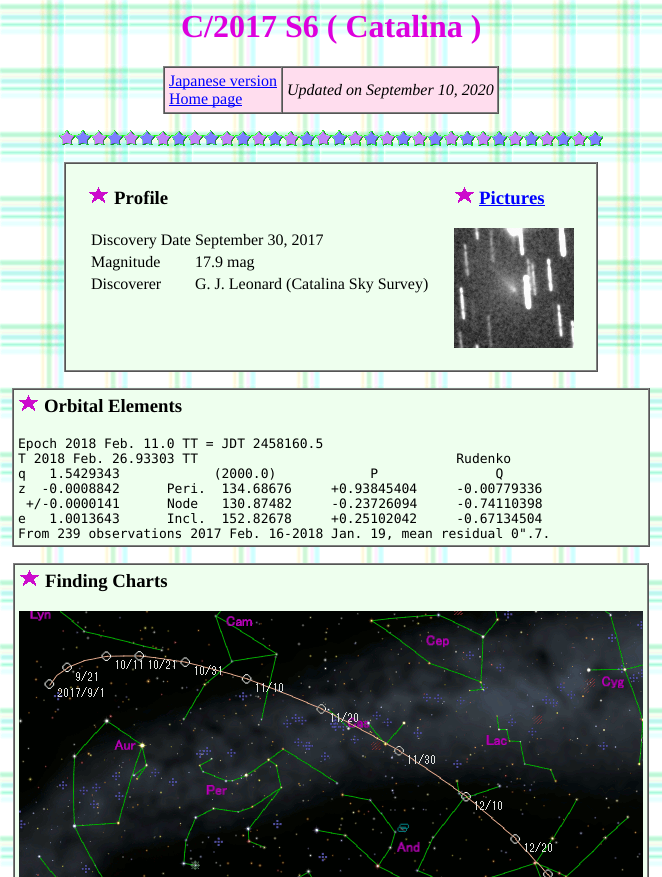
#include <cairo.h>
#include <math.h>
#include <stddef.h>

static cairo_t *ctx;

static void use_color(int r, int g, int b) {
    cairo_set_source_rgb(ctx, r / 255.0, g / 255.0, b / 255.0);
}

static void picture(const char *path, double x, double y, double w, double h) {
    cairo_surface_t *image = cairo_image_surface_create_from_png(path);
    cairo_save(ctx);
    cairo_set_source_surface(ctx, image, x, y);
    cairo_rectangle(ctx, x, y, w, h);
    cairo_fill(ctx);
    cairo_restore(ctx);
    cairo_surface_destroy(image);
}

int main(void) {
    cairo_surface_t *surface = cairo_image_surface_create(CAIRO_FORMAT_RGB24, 662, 877);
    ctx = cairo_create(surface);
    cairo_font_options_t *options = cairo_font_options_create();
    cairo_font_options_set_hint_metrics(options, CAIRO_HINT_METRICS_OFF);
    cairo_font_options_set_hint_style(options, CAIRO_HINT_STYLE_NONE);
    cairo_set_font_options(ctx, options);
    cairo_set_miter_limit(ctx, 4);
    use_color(255, 255, 255);
    cairo_paint(ctx);
    picture("img1.png", 0, 0, 662, 877);
    cairo_select_font_face(ctx, "Liberation Serif", CAIRO_FONT_SLANT_NORMAL, CAIRO_FONT_WEIGHT_BOLD);
    cairo_set_font_size(ctx, 32);
    use_color(221, 0, 221);
    cairo_move_to(ctx, 181, 37);
    cairo_show_text(ctx, "C/2017 S6 ( Catalina )");
    use_color(255, 221, 238);
    cairo_rectangle(ctx, 165, 68, 332, 44);
    cairo_fill(ctx);
    use_color(128, 128, 128);
    cairo_rectangle(ctx, 163, 66, 336, 1);
    cairo_fill(ctx);
    use_color(85, 85, 85);
    cairo_rectangle(ctx, 498, 66, 1, 48);
    cairo_fill(ctx);
    cairo_rectangle(ctx, 163, 113, 336, 1);
    cairo_fill(ctx);
    use_color(128, 128, 128);
    cairo_rectangle(ctx, 163, 66, 1, 48);
    cairo_fill(ctx);
    use_color(85, 85, 85);
    cairo_rectangle(ctx, 164, 67, 334, 1);
    cairo_fill(ctx);
    use_color(128, 128, 128);
    cairo_rectangle(ctx, 281, 67, 1, 46);
    cairo_fill(ctx);
    cairo_rectangle(ctx, 164, 112, 118, 1);
    cairo_fill(ctx);
    use_color(85, 85, 85);
    cairo_rectangle(ctx, 164, 67, 1, 46);
    cairo_fill(ctx);
    use_color(0, 0, 255);
    cairo_rectangle(ctx, 169, 87, 108, 1);
    cairo_fill(ctx);
    cairo_select_font_face(ctx, "Liberation Serif", CAIRO_FONT_SLANT_NORMAL, CAIRO_FONT_WEIGHT_NORMAL);
    cairo_set_font_size(ctx, 16);
    cairo_move_to(ctx, 169, 86);
    cairo_show_text(ctx, "Japanese version");
    cairo_rectangle(ctx, 169, 105, 73, 1);
    cairo_fill(ctx);
    cairo_move_to(ctx, 169, 104);
    cairo_show_text(ctx, "Home page");
    use_color(128, 128, 128);
    cairo_rectangle(ctx, 497, 67, 1, 46);
    cairo_fill(ctx);
    cairo_rectangle(ctx, 282, 112, 216, 1);
    cairo_fill(ctx);
    use_color(85, 85, 85);
    cairo_rectangle(ctx, 282, 67, 1, 46);
    cairo_fill(ctx);
    cairo_select_font_face(ctx, "Liberation Serif", CAIRO_FONT_SLANT_ITALIC, CAIRO_FONT_WEIGHT_NORMAL);
    use_color(0, 0, 0);
    cairo_move_to(ctx, 287, 95);
    cairo_show_text(ctx, "Updated on September 10, 2020");
    picture("img2.png", 59, 130, 544, 16);
    use_color(238, 255, 238);
    cairo_rectangle(ctx, 66, 164, 530, 206);
    cairo_fill(ctx);
    use_color(128, 128, 128);
    cairo_rectangle(ctx, 64, 162, 534, 1);
    cairo_fill(ctx);
    use_color(85, 85, 85);
    cairo_rectangle(ctx, 597, 162, 1, 210);
    cairo_fill(ctx);
    cairo_rectangle(ctx, 64, 371, 534, 1);
    cairo_fill(ctx);
    use_color(128, 128, 128);
    cairo_rectangle(ctx, 64, 162, 1, 210);
    cairo_fill(ctx);
    use_color(85, 85, 85);
    cairo_rectangle(ctx, 65, 163, 532, 1);
    cairo_fill(ctx);
    use_color(128, 128, 128);
    cairo_rectangle(ctx, 596, 163, 1, 208);
    cairo_fill(ctx);
    cairo_rectangle(ctx, 65, 370, 532, 1);
    cairo_fill(ctx);
    use_color(85, 85, 85);
    cairo_rectangle(ctx, 65, 163, 1, 208);
    cairo_fill(ctx);
    picture("img3.png", 89, 187, 19, 16);
    cairo_select_font_face(ctx, "Liberation Serif", CAIRO_FONT_SLANT_NORMAL, CAIRO_FONT_WEIGHT_BOLD);
    cairo_set_font_size(ctx, 18.75);
    use_color(0, 0, 0);
    cairo_move_to(ctx, 114, 204);
    cairo_show_text(ctx, "Profile");
    cairo_select_font_face(ctx, "Liberation Serif", CAIRO_FONT_SLANT_NORMAL, CAIRO_FONT_WEIGHT_NORMAL);
    cairo_set_font_size(ctx, 16);
    cairo_move_to(ctx, 91, 245);
    cairo_show_text(ctx, "Discovery Date September 30, 2017");
    cairo_move_to(ctx, 91, 267);
    cairo_show_text(ctx, "Magnitude");
    cairo_move_to(ctx, 195, 267);
    cairo_show_text(ctx, "17.9 mag");
    cairo_move_to(ctx, 91, 289);
    cairo_show_text(ctx, "Discoverer");
    cairo_move_to(ctx, 195, 289);
    cairo_show_text(ctx, "G. J. Leonard (Catalina Sky Survey)");
    picture("img3.png", 455, 187, 19, 16);
    cairo_select_font_face(ctx, "Liberation Serif", CAIRO_FONT_SLANT_NORMAL, CAIRO_FONT_WEIGHT_BOLD);
    cairo_set_font_size(ctx, 18.75);
    use_color(0, 0, 255);
    cairo_move_to(ctx, 479, 204);
    cairo_show_text(ctx, "Pictures");
    cairo_rectangle(ctx, 479, 205, 66, 1);
    cairo_fill(ctx);
    picture("img4.png", 454, 228, 120, 120);
    use_color(238, 255, 238);
    cairo_rectangle(ctx, 14, 390, 634, 155);
    cairo_fill(ctx);
    use_color(128, 128, 128);
    cairo_rectangle(ctx, 12, 388, 638, 1);
    cairo_fill(ctx);
    use_color(85, 85, 85);
    cairo_rectangle(ctx, 649, 388, 1, 159);
    cairo_fill(ctx);
    cairo_rectangle(ctx, 12, 546, 638, 1);
    cairo_fill(ctx);
    use_color(128, 128, 128);
    cairo_rectangle(ctx, 12, 388, 1, 159);
    cairo_fill(ctx);
    use_color(85, 85, 85);
    cairo_rectangle(ctx, 13, 389, 636, 1);
    cairo_fill(ctx);
    use_color(128, 128, 128);
    cairo_rectangle(ctx, 648, 389, 1, 157);
    cairo_fill(ctx);
    cairo_rectangle(ctx, 13, 545, 636, 1);
    cairo_fill(ctx);
    use_color(85, 85, 85);
    cairo_rectangle(ctx, 13, 389, 1, 157);
    cairo_fill(ctx);
    picture("img3.png", 19, 395, 19, 16);
    use_color(0, 0, 0);
    cairo_move_to(ctx, 44, 412);
    cairo_show_text(ctx, "Orbital Elements");
    cairo_select_font_face(ctx, "DejaVu Sans Mono", CAIRO_FONT_SLANT_NORMAL, CAIRO_FONT_WEIGHT_NORMAL);
    cairo_set_font_size(ctx, 13);
    cairo_move_to(ctx, 18, 448);
    cairo_show_text(ctx, "Epoch 2018 Feb. 11.0 TT = JDT 2458160.5");
    cairo_move_to(ctx, 18, 463);
    cairo_show_text(ctx, "T 2018 Feb. 26.93303 TT                                 Rudenko");
    cairo_move_to(ctx, 18, 478);
    cairo_show_text(ctx, "q   1.5429343            (2000.0)            P               Q");
    cairo_move_to(ctx, 18, 493);
    cairo_show_text(ctx, "z  -0.0008842      Peri.  134.68676     +0.93845404     -0.00779336");
    cairo_move_to(ctx, 26, 508);
    cairo_show_text(ctx, "+/-0.0000141      Node   130.87482     -0.23726094     -0.74110398");
    cairo_move_to(ctx, 18, 523);
    cairo_show_text(ctx, "e   1.0013643      Incl.  152.82678     +0.25102042     -0.67134504");
    cairo_move_to(ctx, 18, 538);
    cairo_show_text(ctx, "From 239 observations 2017 Feb. 16-2018 Jan. 19, mean residual 0\".7.");
    use_color(238, 255, 238);
    cairo_rectangle(ctx, 15, 565, 632, 312);
    cairo_fill(ctx);
    use_color(128, 128, 128);
    cairo_rectangle(ctx, 13, 563, 636, 1);
    cairo_fill(ctx);
    use_color(85, 85, 85);
    cairo_rectangle(ctx, 648, 563, 1, 314);
    cairo_fill(ctx);
    use_color(128, 128, 128);
    cairo_rectangle(ctx, 13, 563, 1, 314);
    cairo_fill(ctx);
    use_color(85, 85, 85);
    cairo_rectangle(ctx, 14, 564, 634, 1);
    cairo_fill(ctx);
    use_color(128, 128, 128);
    cairo_rectangle(ctx, 647, 564, 1, 313);
    cairo_fill(ctx);
    use_color(85, 85, 85);
    cairo_rectangle(ctx, 14, 564, 1, 313);
    cairo_fill(ctx);
    picture("img3.png", 20, 570, 19, 16);
    cairo_select_font_face(ctx, "Liberation Serif", CAIRO_FONT_SLANT_NORMAL, CAIRO_FONT_WEIGHT_BOLD);
    cairo_set_font_size(ctx, 18.75);
    use_color(0, 0, 0);
    cairo_move_to(ctx, 45, 587);
    cairo_show_text(ctx, "Finding Charts");
    picture("img5.png", 19, 611, 624, 266);
    cairo_surface_write_to_png(surface, "result.png");
    cairo_font_options_destroy(options);
    cairo_destroy(ctx);
    cairo_surface_destroy(surface);
    return 0;
}
